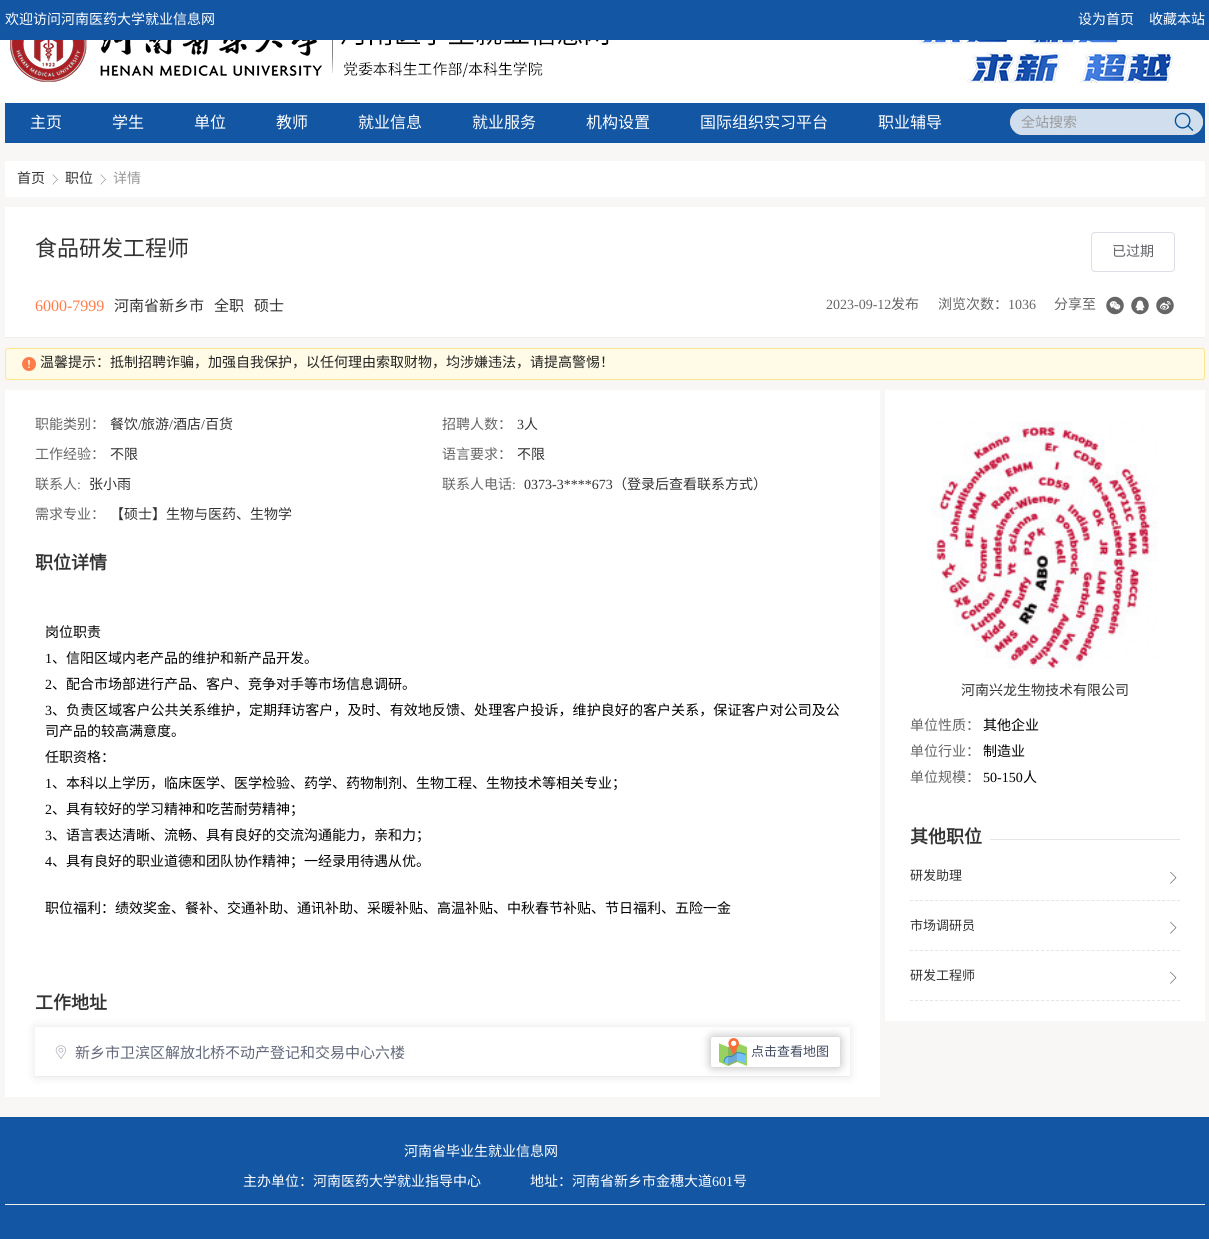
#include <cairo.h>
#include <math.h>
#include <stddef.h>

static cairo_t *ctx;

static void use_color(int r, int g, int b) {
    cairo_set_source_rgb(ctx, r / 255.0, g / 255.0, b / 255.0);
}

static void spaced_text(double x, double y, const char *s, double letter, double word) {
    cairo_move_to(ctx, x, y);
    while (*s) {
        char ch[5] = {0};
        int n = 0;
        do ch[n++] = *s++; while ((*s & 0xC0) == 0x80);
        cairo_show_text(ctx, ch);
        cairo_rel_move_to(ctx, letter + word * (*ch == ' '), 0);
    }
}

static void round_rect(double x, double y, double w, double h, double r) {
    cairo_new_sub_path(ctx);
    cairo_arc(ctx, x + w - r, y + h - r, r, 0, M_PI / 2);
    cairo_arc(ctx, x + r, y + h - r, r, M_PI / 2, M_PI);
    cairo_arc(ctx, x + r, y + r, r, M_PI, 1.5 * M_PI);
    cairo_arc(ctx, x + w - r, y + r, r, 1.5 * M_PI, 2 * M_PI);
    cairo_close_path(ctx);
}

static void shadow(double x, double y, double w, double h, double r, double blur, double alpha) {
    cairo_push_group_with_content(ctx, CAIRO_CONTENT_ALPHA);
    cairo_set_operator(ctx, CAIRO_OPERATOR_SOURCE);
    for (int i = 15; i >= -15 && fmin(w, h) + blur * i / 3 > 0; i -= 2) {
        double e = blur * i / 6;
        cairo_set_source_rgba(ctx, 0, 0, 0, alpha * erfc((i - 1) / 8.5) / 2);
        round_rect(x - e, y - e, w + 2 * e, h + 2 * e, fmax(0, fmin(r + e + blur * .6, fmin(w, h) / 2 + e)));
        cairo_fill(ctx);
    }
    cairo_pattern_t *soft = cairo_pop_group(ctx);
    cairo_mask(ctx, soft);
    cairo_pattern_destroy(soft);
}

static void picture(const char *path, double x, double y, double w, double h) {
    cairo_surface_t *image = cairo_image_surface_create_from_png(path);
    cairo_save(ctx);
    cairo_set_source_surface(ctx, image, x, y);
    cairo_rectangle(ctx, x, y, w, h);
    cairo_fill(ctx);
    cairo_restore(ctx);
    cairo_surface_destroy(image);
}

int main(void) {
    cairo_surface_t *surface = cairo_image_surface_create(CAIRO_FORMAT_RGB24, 1209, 1239);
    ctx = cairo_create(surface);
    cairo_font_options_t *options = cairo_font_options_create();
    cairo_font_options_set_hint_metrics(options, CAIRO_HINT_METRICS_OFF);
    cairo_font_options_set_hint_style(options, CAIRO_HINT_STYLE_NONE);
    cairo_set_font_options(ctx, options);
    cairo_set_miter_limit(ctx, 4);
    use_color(248, 247, 245);
    cairo_paint(ctx);
    use_color(19, 86, 164);
    cairo_rectangle(ctx, 0, 0, 1209, 40);
    cairo_fill(ctx);
    cairo_select_font_face(ctx, "Noto Sans CJK SC", CAIRO_FONT_SLANT_NORMAL, CAIRO_FONT_WEIGHT_NORMAL);
    cairo_set_font_size(ctx, 14);
    use_color(255, 255, 255);
    cairo_move_to(ctx, 5, 24);
    cairo_show_text(ctx, "欢迎访问河南医药大学就业信息网");
    cairo_move_to(ctx, 1078, 24);
    cairo_show_text(ctx, "设为首页");
    cairo_move_to(ctx, 1149, 24);
    cairo_show_text(ctx, "收藏本站");
    cairo_rectangle(ctx, 0, 40, 1209, 63);
    cairo_fill(ctx);
    picture("img1.png", 10, 40, 1163, 43);
    use_color(19, 86, 164);
    cairo_rectangle(ctx, 5, 103, 1200, 40);
    cairo_fill(ctx);
    cairo_set_font_size(ctx, 16);
    use_color(255, 255, 255);
    cairo_move_to(ctx, 30, 128);
    cairo_show_text(ctx, "主页");
    cairo_move_to(ctx, 112, 128);
    cairo_show_text(ctx, "学生");
    cairo_move_to(ctx, 194, 128);
    cairo_show_text(ctx, "单位");
    cairo_move_to(ctx, 276, 128);
    cairo_show_text(ctx, "教师");
    cairo_move_to(ctx, 358, 128);
    cairo_show_text(ctx, "就业信息");
    cairo_move_to(ctx, 472, 128);
    cairo_show_text(ctx, "就业服务");
    cairo_move_to(ctx, 586, 128);
    cairo_show_text(ctx, "机构设置");
    cairo_move_to(ctx, 700, 128);
    cairo_show_text(ctx, "国际组织实习平台");
    cairo_move_to(ctx, 878, 128);
    cairo_show_text(ctx, "职业辅导");
    use_color(208, 222, 237);
    cairo_new_path(ctx);
    cairo_move_to(ctx, 1023, 109);
    cairo_line_to(ctx, 1169, 109);
    cairo_line_to(ctx, 1169, 135);
    cairo_line_to(ctx, 1023, 135);
    cairo_curve_to(ctx, 1016, 135, 1010, 129, 1010, 122);
    cairo_curve_to(ctx, 1010, 115, 1016, 109, 1023, 109);
    cairo_close_path(ctx);
    cairo_fill(ctx);
    use_color(221, 221, 221);
    cairo_new_path(ctx);
    cairo_move_to(ctx, 1023, 109);
    cairo_curve_to(ctx, 1020, 109, 1016, 110, 1014, 113);
    cairo_curve_to(ctx, 1016, 111, 1020, 110, 1023, 110);
    cairo_line_to(ctx, 1168, 110);
    cairo_line_to(ctx, 1169, 109);
    cairo_close_path(ctx);
    cairo_fill(ctx);
    cairo_new_path(ctx);
    cairo_move_to(ctx, 1169, 135);
    cairo_line_to(ctx, 1168, 134);
    cairo_line_to(ctx, 1023, 134);
    cairo_curve_to(ctx, 1020, 134, 1016, 133, 1014, 131);
    cairo_curve_to(ctx, 1016, 134, 1020, 135, 1023, 135);
    cairo_close_path(ctx);
    cairo_fill(ctx);
    cairo_new_path(ctx);
    cairo_move_to(ctx, 1014, 131);
    cairo_curve_to(ctx, 1009, 126, 1009, 118, 1014, 113);
    cairo_line_to(ctx, 1014.5, 113.5);
    cairo_curve_to(ctx, 1010, 118, 1010, 126, 1014.5, 130.5);
    cairo_close_path(ctx);
    cairo_fill(ctx);
    use_color(208, 222, 237);
    cairo_new_path(ctx);
    cairo_move_to(ctx, 1023, 110);
    cairo_line_to(ctx, 1168, 110);
    cairo_line_to(ctx, 1168, 134);
    cairo_line_to(ctx, 1023, 134);
    cairo_curve_to(ctx, 1016.5, 134, 1011, 128.5, 1011, 122);
    cairo_curve_to(ctx, 1011, 115.5, 1016.5, 110, 1023, 110);
    cairo_close_path(ctx);
    cairo_fill(ctx);
    cairo_set_font_size(ctx, 14);
    use_color(153, 153, 153);
    cairo_move_to(ctx, 1021, 127);
    cairo_show_text(ctx, "全站搜索");
    use_color(208, 222, 237);
    cairo_new_path(ctx);
    cairo_move_to(ctx, 1167, 109);
    cairo_line_to(ctx, 1190, 109);
    cairo_curve_to(ctx, 1197, 109, 1203, 115, 1203, 122);
    cairo_curve_to(ctx, 1203, 129, 1197, 135, 1190, 135);
    cairo_line_to(ctx, 1167, 135);
    cairo_close_path(ctx);
    cairo_fill(ctx);
    use_color(221, 221, 221);
    cairo_set_fill_rule(ctx, CAIRO_FILL_RULE_EVEN_ODD);
    cairo_new_path(ctx);
    cairo_move_to(ctx, 1167, 109);
    cairo_line_to(ctx, 1190, 109);
    cairo_curve_to(ctx, 1197, 109, 1203, 115, 1203, 122);
    cairo_curve_to(ctx, 1203, 129, 1197, 135, 1190, 135);
    cairo_line_to(ctx, 1167, 135);
    cairo_close_path(ctx);
    cairo_move_to(ctx, 1167, 110);
    cairo_line_to(ctx, 1190, 110);
    cairo_curve_to(ctx, 1196.5, 110, 1202, 115.5, 1202, 122);
    cairo_curve_to(ctx, 1202, 128.5, 1196.5, 134, 1190, 134);
    cairo_line_to(ctx, 1167, 134);
    cairo_close_path(ctx);
    cairo_fill(ctx);
    picture("img2.png", 1174, 112, 20, 19);
    use_color(255, 255, 255);
    round_rect(5, 161, 1200, 36, 2);
    cairo_fill(ctx);
    use_color(51, 51, 51);
    cairo_move_to(ctx, 17, 183);
    cairo_show_text(ctx, "首页");
    picture("img3.png", 52, 174, 6, 11);
    cairo_move_to(ctx, 65, 183);
    cairo_show_text(ctx, "职位");
    picture("img3.png", 100, 174, 6, 11);
    use_color(153, 153, 153);
    cairo_move_to(ctx, 113, 183);
    cairo_show_text(ctx, "详情");
    use_color(255, 255, 255);
    cairo_rectangle(ctx, 5, 207, 1200, 130);
    cairo_fill(ctx);
    use_color(238, 238, 238);
    cairo_rectangle(ctx, 5, 337, 1200, 1);
    cairo_fill(ctx);
    cairo_set_font_size(ctx, 22);
    use_color(51, 51, 51);
    cairo_move_to(ctx, 35, 256);
    cairo_show_text(ctx, "食品研发工程师");
    cairo_select_font_face(ctx, "Liberation Serif", CAIRO_FONT_SLANT_NORMAL, CAIRO_FONT_WEIGHT_NORMAL);
    cairo_set_font_size(ctx, 16);
    use_color(254, 124, 73);
    cairo_move_to(ctx, 35, 311);
    cairo_show_text(ctx, "6000-7999");
    cairo_select_font_face(ctx, "Noto Sans CJK SC", CAIRO_FONT_SLANT_NORMAL, CAIRO_FONT_WEIGHT_NORMAL);
    cairo_set_font_size(ctx, 15);
    use_color(51, 51, 51);
    cairo_move_to(ctx, 114, 311);
    cairo_show_text(ctx, "河南省新乡市");
    cairo_move_to(ctx, 214, 311);
    cairo_show_text(ctx, "全职");
    cairo_move_to(ctx, 254, 311);
    cairo_show_text(ctx, "硕士");
    round_rect(1091.5, 232.5, 83, 39, 3.5);
    use_color(220, 223, 230);
    cairo_set_line_width(ctx, 1);
    cairo_stroke(ctx);
    cairo_set_font_size(ctx, 14);
    use_color(96, 98, 102);
    cairo_move_to(ctx, 1112, 256);
    cairo_show_text(ctx, "已过期");
    cairo_select_font_face(ctx, "Liberation Serif", CAIRO_FONT_SLANT_NORMAL, CAIRO_FONT_WEIGHT_NORMAL);
    use_color(102, 102, 102);
    cairo_move_to(ctx, 826, 309);
    cairo_show_text(ctx, "2023-09-12");
    cairo_select_font_face(ctx, "Noto Sans CJK SC", CAIRO_FONT_SLANT_NORMAL, CAIRO_FONT_WEIGHT_NORMAL);
    cairo_move_to(ctx, 891, 309);
    cairo_show_text(ctx, "发布");
    cairo_move_to(ctx, 938, 309);
    cairo_show_text(ctx, "浏览次数：");
    cairo_select_font_face(ctx, "Liberation Serif", CAIRO_FONT_SLANT_NORMAL, CAIRO_FONT_WEIGHT_NORMAL);
    cairo_move_to(ctx, 1008, 309);
    cairo_show_text(ctx, "1036");
    cairo_select_font_face(ctx, "Noto Sans CJK SC", CAIRO_FONT_SLANT_NORMAL, CAIRO_FONT_WEIGHT_NORMAL);
    cairo_move_to(ctx, 1054, 309);
    cairo_show_text(ctx, "分享至");
    picture("img4.png", 1106, 296, 18, 19);
    picture("img5.png", 1131, 296, 18, 19);
    picture("img6.png", 1156, 296, 18, 19);
    use_color(255, 251, 230);
    round_rect(5.5, 348.5, 1199, 31, 2.5);
    cairo_fill_preserve(ctx);
    use_color(255, 229, 143);
    cairo_stroke(ctx);
    picture("img7.png", 22, 357, 14, 14);
    use_color(34, 34, 34);
    cairo_move_to(ctx, 40, 367);
    cairo_show_text(ctx, "温馨提示：抵制招聘诈骗，加强自我保护，以任何理由索取财物，均涉嫌违法，请提高警惕！");
    use_color(255, 255, 255);
    cairo_rectangle(ctx, 5, 390, 875, 707);
    cairo_fill(ctx);
    use_color(102, 102, 102);
    cairo_move_to(ctx, 35, 429);
    cairo_show_text(ctx, "职能类别：");
    use_color(51, 51, 51);
    cairo_move_to(ctx, 110, 429);
    cairo_show_text(ctx, "餐饮");
    cairo_select_font_face(ctx, "Liberation Serif", CAIRO_FONT_SLANT_NORMAL, CAIRO_FONT_WEIGHT_NORMAL);
    cairo_move_to(ctx, 138, 429);
    cairo_show_text(ctx, "/");
    cairo_select_font_face(ctx, "Noto Sans CJK SC", CAIRO_FONT_SLANT_NORMAL, CAIRO_FONT_WEIGHT_NORMAL);
    cairo_move_to(ctx, 141, 429);
    cairo_show_text(ctx, "旅游");
    cairo_select_font_face(ctx, "Liberation Serif", CAIRO_FONT_SLANT_NORMAL, CAIRO_FONT_WEIGHT_NORMAL);
    cairo_move_to(ctx, 169, 429);
    cairo_show_text(ctx, "/");
    cairo_select_font_face(ctx, "Noto Sans CJK SC", CAIRO_FONT_SLANT_NORMAL, CAIRO_FONT_WEIGHT_NORMAL);
    cairo_move_to(ctx, 173, 429);
    cairo_show_text(ctx, "酒店");
    cairo_select_font_face(ctx, "Liberation Serif", CAIRO_FONT_SLANT_NORMAL, CAIRO_FONT_WEIGHT_NORMAL);
    cairo_move_to(ctx, 201, 429);
    cairo_show_text(ctx, "/");
    cairo_select_font_face(ctx, "Noto Sans CJK SC", CAIRO_FONT_SLANT_NORMAL, CAIRO_FONT_WEIGHT_NORMAL);
    cairo_move_to(ctx, 205, 429);
    cairo_show_text(ctx, "百货");
    use_color(102, 102, 102);
    cairo_move_to(ctx, 442, 429);
    cairo_show_text(ctx, "招聘人数：");
    cairo_select_font_face(ctx, "Liberation Serif", CAIRO_FONT_SLANT_NORMAL, CAIRO_FONT_WEIGHT_NORMAL);
    use_color(51, 51, 51);
    cairo_move_to(ctx, 517, 429);
    cairo_show_text(ctx, "3");
    cairo_select_font_face(ctx, "Noto Sans CJK SC", CAIRO_FONT_SLANT_NORMAL, CAIRO_FONT_WEIGHT_NORMAL);
    cairo_move_to(ctx, 524, 429);
    cairo_show_text(ctx, "人");
    use_color(102, 102, 102);
    cairo_move_to(ctx, 35, 459);
    cairo_show_text(ctx, "工作经验：");
    use_color(51, 51, 51);
    cairo_move_to(ctx, 110, 459);
    cairo_show_text(ctx, "不限");
    use_color(102, 102, 102);
    cairo_move_to(ctx, 442, 459);
    cairo_show_text(ctx, "语言要求：");
    use_color(51, 51, 51);
    cairo_move_to(ctx, 517, 459);
    cairo_show_text(ctx, "不限");
    use_color(102, 102, 102);
    cairo_move_to(ctx, 35, 489);
    cairo_show_text(ctx, "联系人");
    cairo_select_font_face(ctx, "Liberation Serif", CAIRO_FONT_SLANT_NORMAL, CAIRO_FONT_WEIGHT_NORMAL);
    cairo_move_to(ctx, 77, 489);
    cairo_show_text(ctx, ":");
    cairo_select_font_face(ctx, "Noto Sans CJK SC", CAIRO_FONT_SLANT_NORMAL, CAIRO_FONT_WEIGHT_NORMAL);
    use_color(51, 51, 51);
    cairo_move_to(ctx, 89, 489);
    cairo_show_text(ctx, "张小雨");
    use_color(102, 102, 102);
    cairo_move_to(ctx, 442, 489);
    cairo_show_text(ctx, "联系人电话");
    cairo_select_font_face(ctx, "Liberation Serif", CAIRO_FONT_SLANT_NORMAL, CAIRO_FONT_WEIGHT_NORMAL);
    cairo_move_to(ctx, 512, 489);
    cairo_show_text(ctx, ":");
    use_color(51, 51, 51);
    cairo_move_to(ctx, 524, 489);
    cairo_show_text(ctx, "0373-3****673");
    cairo_select_font_face(ctx, "Noto Sans CJK SC", CAIRO_FONT_SLANT_NORMAL, CAIRO_FONT_WEIGHT_NORMAL);
    cairo_move_to(ctx, 613, 489);
    cairo_show_text(ctx, "（登录后查看联系方式）");
    use_color(102, 102, 102);
    cairo_move_to(ctx, 35, 519);
    cairo_show_text(ctx, "需求专业：");
    use_color(51, 51, 51);
    cairo_move_to(ctx, 110, 519);
    cairo_show_text(ctx, "【硕士】生物与医药、生物学");
    cairo_select_font_face(ctx, "Noto Sans CJK SC", CAIRO_FONT_SLANT_NORMAL, CAIRO_FONT_WEIGHT_BOLD);
    cairo_set_font_size(ctx, 18);
    cairo_move_to(ctx, 35, 569);
    cairo_show_text(ctx, "职位详情");
    cairo_select_font_face(ctx, "Noto Sans CJK SC", CAIRO_FONT_SLANT_NORMAL, CAIRO_FONT_WEIGHT_NORMAL);
    cairo_set_font_size(ctx, 14);
    use_color(0, 0, 0);
    cairo_move_to(ctx, 45, 637);
    cairo_show_text(ctx, "岗位职责");
    cairo_select_font_face(ctx, "Liberation Serif", CAIRO_FONT_SLANT_NORMAL, CAIRO_FONT_WEIGHT_NORMAL);
    cairo_move_to(ctx, 45, 663);
    cairo_show_text(ctx, "1");
    cairo_select_font_face(ctx, "Noto Sans CJK SC", CAIRO_FONT_SLANT_NORMAL, CAIRO_FONT_WEIGHT_NORMAL);
    cairo_move_to(ctx, 52, 663);
    cairo_show_text(ctx, "、信阳区域内老产品的维护和新产品开发。");
    cairo_select_font_face(ctx, "Liberation Serif", CAIRO_FONT_SLANT_NORMAL, CAIRO_FONT_WEIGHT_NORMAL);
    cairo_move_to(ctx, 45, 689);
    cairo_show_text(ctx, "2");
    cairo_select_font_face(ctx, "Noto Sans CJK SC", CAIRO_FONT_SLANT_NORMAL, CAIRO_FONT_WEIGHT_NORMAL);
    cairo_move_to(ctx, 52, 689);
    cairo_show_text(ctx, "、配合市场部进行产品、客户、竞争对手等市场信息调研。");
    cairo_select_font_face(ctx, "Liberation Serif", CAIRO_FONT_SLANT_NORMAL, CAIRO_FONT_WEIGHT_NORMAL);
    spaced_text(45, 715, "3", 0.07, 0);
    cairo_select_font_face(ctx, "Noto Sans CJK SC", CAIRO_FONT_SLANT_NORMAL, CAIRO_FONT_WEIGHT_NORMAL);
    spaced_text(52, 715, "、负责区域客户公共关系维护，定期拜访客户，及时、有效地反馈、处理客户投诉，维护良好的客户关系，保证客户对公司及公", 0.07, 0);
    cairo_move_to(ctx, 45, 736);
    cairo_show_text(ctx, "司产品的较高满意度。");
    cairo_move_to(ctx, 45, 762);
    cairo_show_text(ctx, "任职资格：");
    cairo_select_font_face(ctx, "Liberation Serif", CAIRO_FONT_SLANT_NORMAL, CAIRO_FONT_WEIGHT_NORMAL);
    cairo_move_to(ctx, 45, 788);
    cairo_show_text(ctx, "1");
    cairo_select_font_face(ctx, "Noto Sans CJK SC", CAIRO_FONT_SLANT_NORMAL, CAIRO_FONT_WEIGHT_NORMAL);
    cairo_move_to(ctx, 52, 788);
    cairo_show_text(ctx, "、本科以上学历，临床医学、医学检验、药学、药物制剂、生物工程、生物技术等相关专业；");
    cairo_select_font_face(ctx, "Liberation Serif", CAIRO_FONT_SLANT_NORMAL, CAIRO_FONT_WEIGHT_NORMAL);
    cairo_move_to(ctx, 45, 814);
    cairo_show_text(ctx, "2");
    cairo_select_font_face(ctx, "Noto Sans CJK SC", CAIRO_FONT_SLANT_NORMAL, CAIRO_FONT_WEIGHT_NORMAL);
    cairo_move_to(ctx, 52, 814);
    cairo_show_text(ctx, "、具有较好的学习精神和吃苦耐劳精神；");
    cairo_select_font_face(ctx, "Liberation Serif", CAIRO_FONT_SLANT_NORMAL, CAIRO_FONT_WEIGHT_NORMAL);
    cairo_move_to(ctx, 45, 840);
    cairo_show_text(ctx, "3");
    cairo_select_font_face(ctx, "Noto Sans CJK SC", CAIRO_FONT_SLANT_NORMAL, CAIRO_FONT_WEIGHT_NORMAL);
    cairo_move_to(ctx, 52, 840);
    cairo_show_text(ctx, "、语言表达清晰、流畅、具有良好的交流沟通能力，亲和力；");
    cairo_select_font_face(ctx, "Liberation Serif", CAIRO_FONT_SLANT_NORMAL, CAIRO_FONT_WEIGHT_NORMAL);
    cairo_move_to(ctx, 45, 866);
    cairo_show_text(ctx, "4");
    cairo_select_font_face(ctx, "Noto Sans CJK SC", CAIRO_FONT_SLANT_NORMAL, CAIRO_FONT_WEIGHT_NORMAL);
    cairo_move_to(ctx, 52, 866);
    cairo_show_text(ctx, "、具有良好的职业道德和团队协作精神；一经录用待遇从优。");
    cairo_move_to(ctx, 45, 913);
    cairo_show_text(ctx, "职位福利：绩效奖金、餐补、交通补助、通讯补助、采暖补贴、高温补贴、中秋春节补贴、节日福利、五险一金");
    cairo_select_font_face(ctx, "Noto Sans CJK SC", CAIRO_FONT_SLANT_NORMAL, CAIRO_FONT_WEIGHT_BOLD);
    cairo_set_font_size(ctx, 18);
    use_color(51, 51, 51);
    cairo_move_to(ctx, 35, 1009);
    cairo_show_text(ctx, "工作地址");
    cairo_save(ctx);
    cairo_new_path(ctx);
    cairo_move_to(ctx, 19, 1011);
    cairo_line_to(ctx, 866, 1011);
    cairo_line_to(ctx, 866, 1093);
    cairo_line_to(ctx, 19, 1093);
    cairo_close_path(ctx);
    cairo_move_to(ctx, 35, 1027);
    cairo_line_to(ctx, 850, 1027);
    cairo_line_to(ctx, 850, 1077);
    cairo_line_to(ctx, 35, 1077);
    cairo_close_path(ctx);
    cairo_clip(ctx);
    use_color(0, 0, 0);
    shadow(35, 1027, 815, 50, 0, 5, 0.1);
    cairo_restore(ctx);
    use_color(236, 237, 239);
    cairo_rectangle(ctx, 35, 1076, 815, 1);
    cairo_fill(ctx);
    picture("img8.png", 55, 1045, 12, 14);
    cairo_select_font_face(ctx, "Noto Sans CJK SC", CAIRO_FONT_SLANT_NORMAL, CAIRO_FONT_WEIGHT_NORMAL);
    cairo_set_font_size(ctx, 15);
    use_color(98, 104, 122);
    cairo_move_to(ctx, 75, 1058);
    cairo_show_text(ctx, "新乡市卫滨区解放北桥不动产登记和交易中心六楼");
    use_color(0, 0, 0);
    shadow(711, 1037, 129, 30, 2, 5, 0.3);
    use_color(255, 255, 255);
    round_rect(711, 1037, 129, 30, 2);
    cairo_fill(ctx);
    picture("img9.png", 719, 1038, 28, 28);
    cairo_set_font_size(ctx, 13);
    use_color(65, 74, 96);
    cairo_move_to(ctx, 751, 1056);
    cairo_show_text(ctx, "点击查看地图");
    use_color(255, 255, 255);
    cairo_rectangle(ctx, 885, 390, 320, 631);
    cairo_fill(ctx);
    picture("img10.png", 931, 421, 227, 248);
    cairo_set_font_size(ctx, 14);
    use_color(51, 51, 51);
    cairo_move_to(ctx, 961, 695);
    cairo_show_text(ctx, "河南兴龙生物技术有限公司");
    use_color(102, 102, 102);
    cairo_move_to(ctx, 910, 730);
    cairo_show_text(ctx, "单位性质：");
    use_color(0, 0, 0);
    cairo_move_to(ctx, 983, 730);
    cairo_show_text(ctx, "其他企业");
    use_color(102, 102, 102);
    cairo_move_to(ctx, 910, 756);
    cairo_show_text(ctx, "单位行业：");
    use_color(0, 0, 0);
    cairo_move_to(ctx, 983, 756);
    cairo_show_text(ctx, "制造业");
    use_color(102, 102, 102);
    cairo_move_to(ctx, 910, 782);
    cairo_show_text(ctx, "单位规模：");
    cairo_select_font_face(ctx, "Liberation Serif", CAIRO_FONT_SLANT_NORMAL, CAIRO_FONT_WEIGHT_NORMAL);
    use_color(0, 0, 0);
    cairo_move_to(ctx, 983, 782);
    cairo_show_text(ctx, "50-150");
    cairo_select_font_face(ctx, "Noto Sans CJK SC", CAIRO_FONT_SLANT_NORMAL, CAIRO_FONT_WEIGHT_NORMAL);
    cairo_move_to(ctx, 1023, 782);
    cairo_show_text(ctx, "人");
    cairo_select_font_face(ctx, "Noto Sans CJK SC", CAIRO_FONT_SLANT_NORMAL, CAIRO_FONT_WEIGHT_BOLD);
    cairo_set_font_size(ctx, 18);
    use_color(51, 51, 51);
    cairo_move_to(ctx, 910, 843);
    cairo_show_text(ctx, "其他职位");
    use_color(229, 229, 229);
    cairo_rectangle(ctx, 990, 839, 190, 1);
    cairo_fill(ctx);
    cairo_new_path(ctx);
    cairo_move_to(ctx, 910, 900.5);
    cairo_line_to(ctx, 1180, 900.5);
    cairo_set_dash(ctx, (double[]){3, 2.04}, 2, 0);
    cairo_stroke(ctx);
    cairo_select_font_face(ctx, "Noto Sans CJK SC", CAIRO_FONT_SLANT_NORMAL, CAIRO_FONT_WEIGHT_NORMAL);
    cairo_set_font_size(ctx, 13);
    use_color(51, 51, 51);
    cairo_move_to(ctx, 910, 880);
    cairo_show_text(ctx, "研发助理");
    picture("img11.png", 1170, 871, 7, 13);
    cairo_new_path(ctx);
    cairo_move_to(ctx, 910, 950.5);
    cairo_line_to(ctx, 1180, 950.5);
    use_color(229, 229, 229);
    cairo_stroke(ctx);
    use_color(51, 51, 51);
    cairo_move_to(ctx, 910, 930);
    cairo_show_text(ctx, "市场调研员");
    picture("img11.png", 1170, 921, 7, 13);
    cairo_new_path(ctx);
    cairo_move_to(ctx, 910, 1000.5);
    cairo_line_to(ctx, 1180, 1000.5);
    use_color(229, 229, 229);
    cairo_stroke(ctx);
    use_color(51, 51, 51);
    cairo_move_to(ctx, 910, 980);
    cairo_show_text(ctx, "研发工程师");
    picture("img11.png", 1170, 971, 7, 13);
    use_color(19, 86, 164);
    cairo_rectangle(ctx, 0, 1117, 1209, 122);
    cairo_fill(ctx);
    cairo_set_font_size(ctx, 14);
    use_color(255, 255, 255);
    cairo_move_to(ctx, 404, 1156);
    cairo_show_text(ctx, "河南省毕业生就业信息网");
    cairo_move_to(ctx, 243, 1186);
    cairo_show_text(ctx, "主办单位：河南医药大学就业指导中心");
    cairo_move_to(ctx, 530, 1186);
    cairo_show_text(ctx, "地址：河南省新乡市金穗大道");
    cairo_select_font_face(ctx, "Liberation Serif", CAIRO_FONT_SLANT_NORMAL, CAIRO_FONT_WEIGHT_NORMAL);
    cairo_move_to(ctx, 712, 1186);
    cairo_show_text(ctx, "601");
    cairo_select_font_face(ctx, "Noto Sans CJK SC", CAIRO_FONT_SLANT_NORMAL, CAIRO_FONT_WEIGHT_NORMAL);
    cairo_move_to(ctx, 733, 1186);
    cairo_show_text(ctx, "号");
    use_color(238, 238, 238);
    cairo_rectangle(ctx, 5, 1204, 1200, 1);
    cairo_fill(ctx);
    cairo_surface_write_to_png(surface, "result.png");
    cairo_font_options_destroy(options);
    cairo_destroy(ctx);
    cairo_surface_destroy(surface);
    return 0;
}
